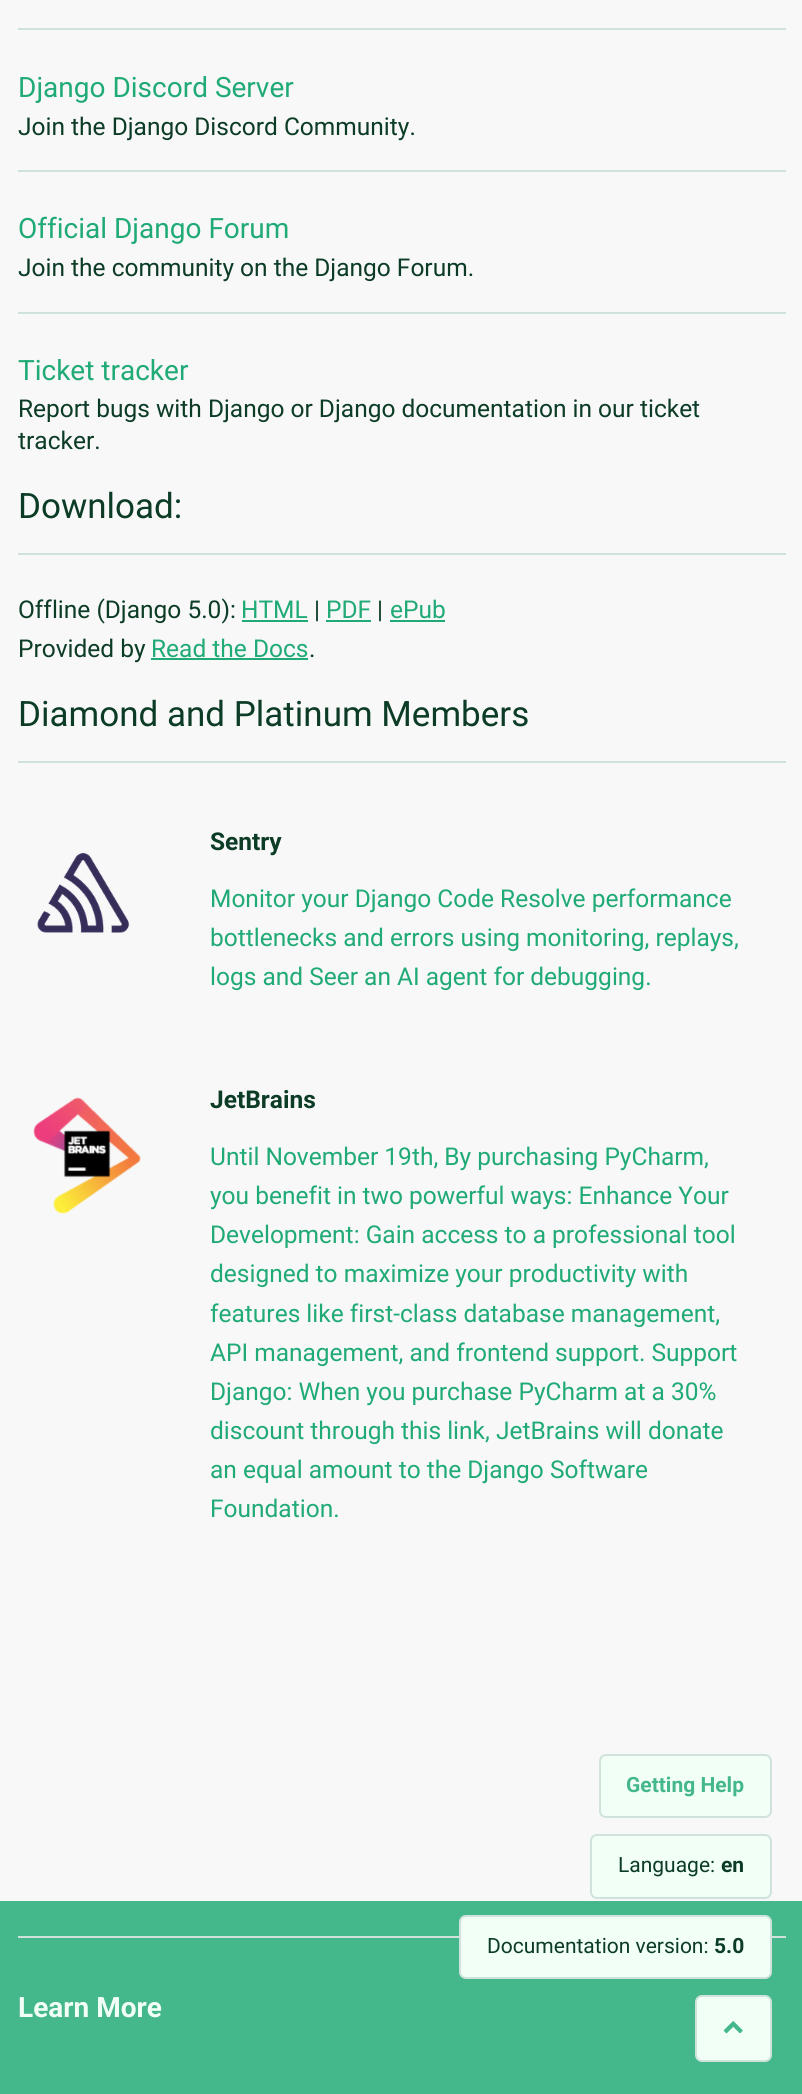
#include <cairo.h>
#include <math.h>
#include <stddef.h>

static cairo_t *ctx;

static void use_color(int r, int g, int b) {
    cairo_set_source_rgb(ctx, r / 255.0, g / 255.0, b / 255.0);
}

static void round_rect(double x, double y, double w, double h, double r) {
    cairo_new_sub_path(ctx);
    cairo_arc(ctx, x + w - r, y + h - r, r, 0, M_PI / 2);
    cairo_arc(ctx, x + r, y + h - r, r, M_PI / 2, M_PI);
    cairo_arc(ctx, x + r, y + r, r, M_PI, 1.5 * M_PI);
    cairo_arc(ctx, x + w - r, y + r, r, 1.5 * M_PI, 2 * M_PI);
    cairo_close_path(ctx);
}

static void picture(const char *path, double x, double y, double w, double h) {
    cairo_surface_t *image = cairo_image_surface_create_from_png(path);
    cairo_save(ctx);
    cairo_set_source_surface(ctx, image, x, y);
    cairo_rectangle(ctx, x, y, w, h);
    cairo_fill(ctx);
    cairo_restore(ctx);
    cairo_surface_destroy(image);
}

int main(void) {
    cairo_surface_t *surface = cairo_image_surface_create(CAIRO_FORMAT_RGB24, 802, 2094);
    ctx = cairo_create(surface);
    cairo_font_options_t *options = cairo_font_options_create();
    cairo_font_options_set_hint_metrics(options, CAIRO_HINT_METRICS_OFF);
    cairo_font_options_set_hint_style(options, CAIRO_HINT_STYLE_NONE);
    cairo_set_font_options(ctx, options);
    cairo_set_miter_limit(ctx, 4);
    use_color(248, 248, 248);
    cairo_paint(ctx);
    use_color(207, 227, 220);
    cairo_rectangle(ctx, 18, 28, 768, 2);
    cairo_fill(ctx);
    cairo_select_font_face(ctx, "Roboto", CAIRO_FONT_SLANT_NORMAL, CAIRO_FONT_WEIGHT_NORMAL);
    cairo_set_font_size(ctx, 28);
    use_color(32, 170, 118);
    cairo_move_to(ctx, 18, 97);
    cairo_show_text(ctx, "Django Discord Server");
    cairo_set_font_size(ctx, 24.5);
    use_color(12, 60, 38);
    cairo_move_to(ctx, 18, 135);
    cairo_show_text(ctx, "Join the Django Discord Community.");
    use_color(207, 227, 220);
    cairo_rectangle(ctx, 18, 170, 768, 2);
    cairo_fill(ctx);
    cairo_set_font_size(ctx, 28);
    use_color(32, 170, 118);
    cairo_move_to(ctx, 18, 238);
    cairo_show_text(ctx, "Official Django Forum");
    cairo_set_font_size(ctx, 24.5);
    use_color(12, 60, 38);
    cairo_move_to(ctx, 18, 276);
    cairo_show_text(ctx, "Join the community on the Django Forum.");
    use_color(207, 227, 220);
    cairo_rectangle(ctx, 18, 312, 768, 2);
    cairo_fill(ctx);
    cairo_set_font_size(ctx, 28);
    use_color(32, 170, 118);
    cairo_move_to(ctx, 18, 380);
    cairo_show_text(ctx, "Ticket tracker");
    cairo_set_font_size(ctx, 24.5);
    use_color(12, 60, 38);
    cairo_move_to(ctx, 18, 417);
    cairo_show_text(ctx, "Report bugs with Django or Django documentation in our ticket");
    cairo_move_to(ctx, 18, 449);
    cairo_show_text(ctx, "tracker.");
    use_color(207, 227, 220);
    cairo_rectangle(ctx, 18, 553, 768, 2);
    cairo_fill(ctx);
    cairo_set_font_size(ctx, 35);
    use_color(12, 60, 38);
    cairo_move_to(ctx, 18, 518);
    cairo_show_text(ctx, "Download:");
    cairo_set_font_size(ctx, 24.5);
    cairo_move_to(ctx, 18, 618);
    cairo_show_text(ctx, "Offline (Django 5.0):");
    use_color(32, 170, 118);
    cairo_move_to(ctx, 241, 618);
    cairo_show_text(ctx, "HTML");
    cairo_rectangle(ctx, 242, 620, 66, 2);
    cairo_fill(ctx);
    use_color(12, 60, 38);
    cairo_move_to(ctx, 314, 618);
    cairo_show_text(ctx, "|");
    use_color(32, 170, 118);
    cairo_move_to(ctx, 326, 618);
    cairo_show_text(ctx, "PDF");
    cairo_rectangle(ctx, 326, 620, 45, 2);
    cairo_fill(ctx);
    use_color(12, 60, 38);
    cairo_move_to(ctx, 377, 618);
    cairo_show_text(ctx, "|");
    use_color(32, 170, 118);
    cairo_move_to(ctx, 390, 618);
    cairo_show_text(ctx, "ePub");
    cairo_rectangle(ctx, 390, 620, 55, 2);
    cairo_fill(ctx);
    use_color(12, 60, 38);
    cairo_move_to(ctx, 18, 657);
    cairo_show_text(ctx, "Provided by");
    use_color(32, 170, 118);
    cairo_move_to(ctx, 151, 657);
    cairo_show_text(ctx, "Read the Docs");
    use_color(12, 60, 38);
    cairo_move_to(ctx, 309, 657);
    cairo_show_text(ctx, ".");
    use_color(32, 170, 118);
    cairo_rectangle(ctx, 151, 658, 157, 2);
    cairo_fill(ctx);
    use_color(207, 227, 220);
    cairo_rectangle(ctx, 18, 761, 768, 2);
    cairo_fill(ctx);
    cairo_set_font_size(ctx, 35);
    use_color(12, 60, 38);
    cairo_move_to(ctx, 18, 726);
    cairo_show_text(ctx, "Diamond and Platinum Members");
    picture("img1.png", 37, 852, 93, 81);
    cairo_select_font_face(ctx, "Roboto", CAIRO_FONT_SLANT_NORMAL, CAIRO_FONT_WEIGHT_BOLD);
    cairo_set_font_size(ctx, 24.5);
    cairo_move_to(ctx, 210, 850);
    cairo_show_text(ctx, "Sentry");
    cairo_select_font_face(ctx, "Roboto", CAIRO_FONT_SLANT_NORMAL, CAIRO_FONT_WEIGHT_NORMAL);
    use_color(32, 170, 118);
    cairo_move_to(ctx, 210, 907);
    cairo_show_text(ctx, "Monitor your Django Code Resolve performance");
    cairo_move_to(ctx, 210, 946);
    cairo_show_text(ctx, "bottlenecks and errors using monitoring, replays,");
    cairo_move_to(ctx, 210, 985);
    cairo_show_text(ctx, "logs and Seer an AI agent for debugging.");
    picture("img2.png", 33, 1097, 108, 117);
    cairo_select_font_face(ctx, "Roboto", CAIRO_FONT_SLANT_NORMAL, CAIRO_FONT_WEIGHT_BOLD);
    use_color(12, 60, 38);
    cairo_move_to(ctx, 210, 1108);
    cairo_show_text(ctx, "JetBrains");
    cairo_select_font_face(ctx, "Roboto", CAIRO_FONT_SLANT_NORMAL, CAIRO_FONT_WEIGHT_NORMAL);
    use_color(32, 170, 118);
    cairo_move_to(ctx, 210, 1165);
    cairo_show_text(ctx, "Until November 19th, By purchasing PyCharm,");
    cairo_move_to(ctx, 210, 1204);
    cairo_show_text(ctx, "you benefit in two powerful ways: Enhance Your");
    cairo_move_to(ctx, 210, 1243);
    cairo_show_text(ctx, "Development: Gain access to a professional tool");
    cairo_move_to(ctx, 210, 1282);
    cairo_show_text(ctx, "designed to maximize your productivity with");
    cairo_move_to(ctx, 210, 1322);
    cairo_show_text(ctx, "features like first-class database management,");
    cairo_move_to(ctx, 210, 1361);
    cairo_show_text(ctx, "API management, and frontend support. Support");
    cairo_move_to(ctx, 210, 1400);
    cairo_show_text(ctx, "Django: When you purchase PyCharm at a 30%");
    cairo_move_to(ctx, 210, 1439);
    cairo_show_text(ctx, "discount through this link, JetBrains will donate");
    cairo_move_to(ctx, 210, 1478);
    cairo_show_text(ctx, "an equal amount to the Django Software");
    cairo_move_to(ctx, 210, 1517);
    cairo_show_text(ctx, "Foundation.");
    use_color(241, 255, 247);
    round_rect(600, 1755, 171, 62, 6);
    cairo_fill_preserve(ctx);
    use_color(207, 227, 220);
    cairo_stroke(ctx);
    cairo_select_font_face(ctx, "Roboto", CAIRO_FONT_SLANT_NORMAL, CAIRO_FONT_WEIGHT_BOLD);
    cairo_set_font_size(ctx, 21);
    use_color(68, 183, 139);
    cairo_move_to(ctx, 626, 1792);
    cairo_show_text(ctx, "Getting Help");
    use_color(241, 255, 247);
    round_rect(591, 1835, 180, 63, 6);
    cairo_fill_preserve(ctx);
    use_color(207, 227, 220);
    cairo_stroke(ctx);
    cairo_select_font_face(ctx, "Roboto", CAIRO_FONT_SLANT_NORMAL, CAIRO_FONT_WEIGHT_NORMAL);
    use_color(12, 60, 38);
    cairo_move_to(ctx, 618, 1872);
    cairo_show_text(ctx, "Language:");
    cairo_select_font_face(ctx, "Roboto", CAIRO_FONT_SLANT_NORMAL, CAIRO_FONT_WEIGHT_BOLD);
    cairo_move_to(ctx, 721, 1872);
    cairo_show_text(ctx, "en");
    use_color(68, 183, 139);
    cairo_rectangle(ctx, 0, 1901, 802, 193);
    cairo_fill(ctx);
    use_color(207, 227, 220);
    cairo_rectangle(ctx, 18, 1936, 768, 2);
    cairo_fill(ctx);
    use_color(241, 255, 247);
    round_rect(460, 1916, 311, 62, 6);
    cairo_fill_preserve(ctx);
    use_color(207, 227, 220);
    cairo_stroke(ctx);
    cairo_select_font_face(ctx, "Roboto", CAIRO_FONT_SLANT_NORMAL, CAIRO_FONT_WEIGHT_NORMAL);
    use_color(12, 60, 38);
    cairo_move_to(ctx, 487, 1953);
    cairo_show_text(ctx, "Documentation version:");
    cairo_select_font_face(ctx, "Roboto", CAIRO_FONT_SLANT_NORMAL, CAIRO_FONT_WEIGHT_BOLD);
    cairo_move_to(ctx, 714, 1953);
    cairo_show_text(ctx, "5.0");
    use_color(241, 255, 247);
    round_rect(696, 1996, 75, 65, 6);
    cairo_fill_preserve(ctx);
    use_color(207, 227, 220);
    cairo_stroke(ctx);
    picture("img3.png", 723, 2021, 20, 13);
    cairo_set_font_size(ctx, 28);
    use_color(241, 255, 247);
    cairo_move_to(ctx, 18, 2017);
    cairo_show_text(ctx, "Learn More");
    cairo_surface_write_to_png(surface, "result.png");
    cairo_font_options_destroy(options);
    cairo_destroy(ctx);
    cairo_surface_destroy(surface);
    return 0;
}
